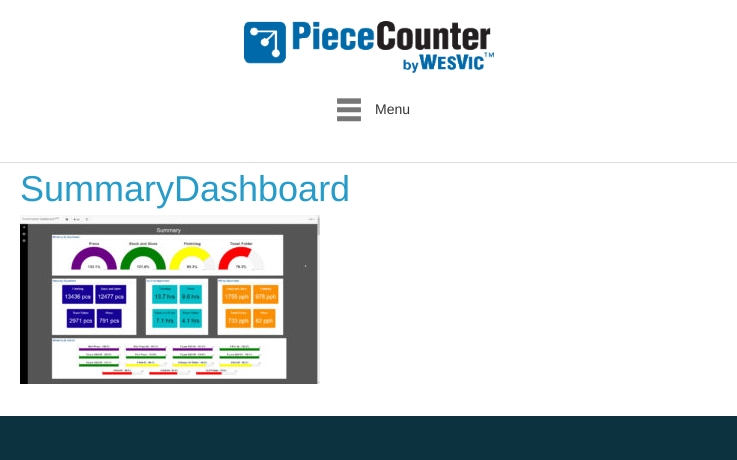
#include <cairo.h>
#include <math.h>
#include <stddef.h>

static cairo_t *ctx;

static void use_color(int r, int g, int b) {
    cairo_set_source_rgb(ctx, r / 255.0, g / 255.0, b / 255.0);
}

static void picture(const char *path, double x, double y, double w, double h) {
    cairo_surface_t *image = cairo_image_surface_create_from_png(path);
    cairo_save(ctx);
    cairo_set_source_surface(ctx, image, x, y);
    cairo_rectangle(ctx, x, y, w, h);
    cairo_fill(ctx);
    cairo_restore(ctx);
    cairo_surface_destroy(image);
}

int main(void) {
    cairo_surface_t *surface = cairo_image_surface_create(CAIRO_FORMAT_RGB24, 737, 460);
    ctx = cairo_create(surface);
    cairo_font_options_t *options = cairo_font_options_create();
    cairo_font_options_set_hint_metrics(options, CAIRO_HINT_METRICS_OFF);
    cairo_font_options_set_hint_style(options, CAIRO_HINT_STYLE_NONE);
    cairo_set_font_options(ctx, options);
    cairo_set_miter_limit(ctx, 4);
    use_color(255, 255, 255);
    cairo_paint(ctx);
    use_color(221, 221, 221);
    cairo_rectangle(ctx, 0, 162, 737, 1);
    cairo_fill(ctx);
    picture("img1.png", 244, 21, 250, 52);
    picture("img2.png", 337, 98, 24, 24);
    cairo_select_font_face(ctx, "Liberation Sans", CAIRO_FONT_SLANT_NORMAL, CAIRO_FONT_WEIGHT_NORMAL);
    cairo_set_font_size(ctx, 14);
    use_color(51, 51, 51);
    cairo_move_to(ctx, 375, 114);
    cairo_show_text(ctx, "Menu");
    cairo_set_font_size(ctx, 36);
    use_color(38, 156, 203);
    cairo_move_to(ctx, 20, 201);
    cairo_show_text(ctx, "SummaryDashboard");
    picture("img3.png", 20, 215, 300, 169);
    use_color(12, 50, 64);
    cairo_rectangle(ctx, 0, 416, 737, 44);
    cairo_fill(ctx);
    cairo_surface_write_to_png(surface, "result.png");
    cairo_font_options_destroy(options);
    cairo_destroy(ctx);
    cairo_surface_destroy(surface);
    return 0;
}
